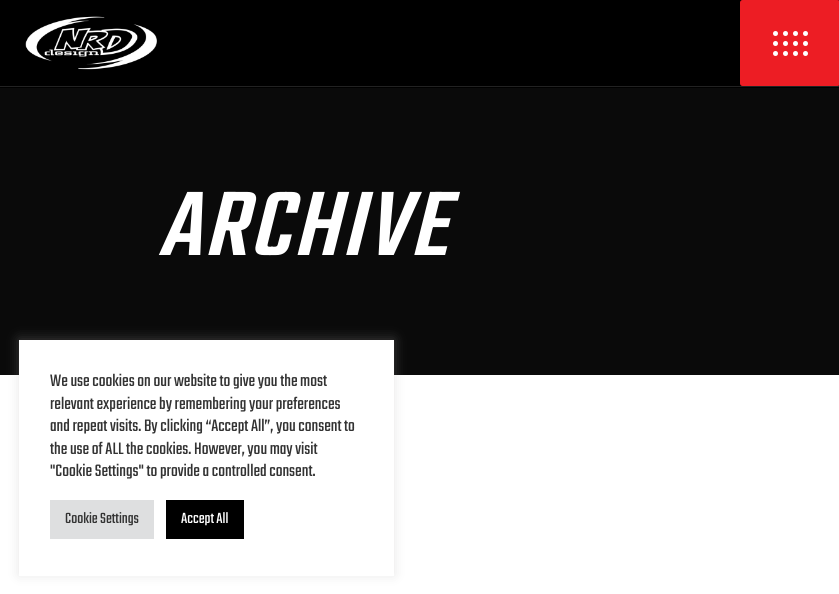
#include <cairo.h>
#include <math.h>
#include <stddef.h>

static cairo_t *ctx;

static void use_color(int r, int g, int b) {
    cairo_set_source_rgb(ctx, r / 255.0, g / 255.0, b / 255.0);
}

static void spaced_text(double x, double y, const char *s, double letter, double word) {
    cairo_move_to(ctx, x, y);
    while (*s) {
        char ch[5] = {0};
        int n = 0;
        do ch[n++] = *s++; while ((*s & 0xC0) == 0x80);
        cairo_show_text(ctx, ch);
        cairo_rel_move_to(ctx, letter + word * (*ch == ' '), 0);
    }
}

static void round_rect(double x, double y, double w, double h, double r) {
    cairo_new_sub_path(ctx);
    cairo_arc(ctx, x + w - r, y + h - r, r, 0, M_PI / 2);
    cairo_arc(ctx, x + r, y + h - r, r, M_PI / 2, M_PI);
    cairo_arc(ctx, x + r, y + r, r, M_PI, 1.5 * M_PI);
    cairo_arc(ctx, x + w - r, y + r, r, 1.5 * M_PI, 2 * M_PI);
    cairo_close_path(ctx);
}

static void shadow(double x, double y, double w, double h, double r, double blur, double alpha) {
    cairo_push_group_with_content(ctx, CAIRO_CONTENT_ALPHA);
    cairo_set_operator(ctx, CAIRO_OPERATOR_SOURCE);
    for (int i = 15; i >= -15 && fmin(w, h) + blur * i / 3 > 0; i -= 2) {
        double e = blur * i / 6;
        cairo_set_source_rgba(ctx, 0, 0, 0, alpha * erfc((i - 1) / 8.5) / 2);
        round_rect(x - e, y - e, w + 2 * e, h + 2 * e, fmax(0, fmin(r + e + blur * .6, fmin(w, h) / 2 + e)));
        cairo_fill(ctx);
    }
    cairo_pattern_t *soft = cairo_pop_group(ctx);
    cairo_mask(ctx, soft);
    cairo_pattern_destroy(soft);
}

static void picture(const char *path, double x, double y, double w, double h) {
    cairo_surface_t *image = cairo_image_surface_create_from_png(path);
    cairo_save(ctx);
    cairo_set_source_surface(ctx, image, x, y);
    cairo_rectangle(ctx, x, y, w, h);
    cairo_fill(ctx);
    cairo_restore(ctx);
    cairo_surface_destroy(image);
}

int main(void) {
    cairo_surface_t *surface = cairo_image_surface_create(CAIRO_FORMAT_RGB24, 839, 594);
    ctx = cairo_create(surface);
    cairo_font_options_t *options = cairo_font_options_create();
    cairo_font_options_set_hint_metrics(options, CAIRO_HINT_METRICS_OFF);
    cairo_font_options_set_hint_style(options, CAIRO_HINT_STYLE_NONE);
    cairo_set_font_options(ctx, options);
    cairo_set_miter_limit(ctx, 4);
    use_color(255, 255, 255);
    cairo_paint(ctx);
    use_color(0, 0, 0);
    cairo_rectangle(ctx, 0, 0, 839, 88);
    cairo_fill(ctx);
    use_color(34, 34, 34);
    cairo_rectangle(ctx, 0, 86, 839, 1);
    cairo_fill(ctx);
    picture("img1.png", 25, 16, 132, 54);
    use_color(237, 29, 36);
    round_rect(740, 0, 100, 86, 2.5);
    cairo_fill(ctx);
    use_color(255, 255, 255);
    cairo_arc(ctx, 775.5, 33.5, 2.5, 0, 2 * M_PI);
    cairo_fill(ctx);
    cairo_arc(ctx, 785.5, 33.5, 2.5, 0, 2 * M_PI);
    cairo_fill(ctx);
    cairo_arc(ctx, 795.5, 33.5, 2.5, 0, 2 * M_PI);
    cairo_fill(ctx);
    cairo_arc(ctx, 805.5, 33.5, 2.5, 0, 2 * M_PI);
    cairo_fill(ctx);
    cairo_arc(ctx, 775.5, 43.5, 2.5, 0, 2 * M_PI);
    cairo_fill(ctx);
    cairo_arc(ctx, 785.5, 43.5, 2.5, 0, 2 * M_PI);
    cairo_fill(ctx);
    cairo_arc(ctx, 795.5, 43.5, 2.5, 0, 2 * M_PI);
    cairo_fill(ctx);
    cairo_arc(ctx, 805.5, 43.5, 2.5, 0, 2 * M_PI);
    cairo_fill(ctx);
    cairo_arc(ctx, 775.5, 53.5, 2.5, 0, 2 * M_PI);
    cairo_fill(ctx);
    cairo_arc(ctx, 785.5, 53.5, 2.5, 0, 2 * M_PI);
    cairo_fill(ctx);
    cairo_arc(ctx, 795.5, 53.5, 2.5, 0, 2 * M_PI);
    cairo_fill(ctx);
    cairo_arc(ctx, 805.5, 53.5, 2.5, 0, 2 * M_PI);
    cairo_fill(ctx);
    use_color(10, 10, 10);
    cairo_rectangle(ctx, 0, 88, 839, 287);
    cairo_fill(ctx);
    cairo_select_font_face(ctx, "Teko Medium", CAIRO_FONT_SLANT_ITALIC, CAIRO_FONT_WEIGHT_NORMAL);
    cairo_set_font_size(ctx, 100);
    use_color(255, 255, 255);
    spaced_text(158, 255, "ARCHIVE", 2.5, 0);
    use_color(172, 171, 171);
    shadow(19, 339, 375, 236, 0, 6, 0.3);
    use_color(255, 255, 255);
    cairo_rectangle(ctx, 19, 340, 375, 236);
    cairo_fill(ctx);
    cairo_select_font_face(ctx, "Teko", CAIRO_FONT_SLANT_NORMAL, CAIRO_FONT_WEIGHT_NORMAL);
    cairo_set_font_size(ctx, 18.3);
    use_color(51, 51, 51);
    cairo_move_to(ctx, 50, 386);
    cairo_show_text(ctx, "We use cookies on our website to give you the most");
    cairo_move_to(ctx, 50, 409);
    cairo_show_text(ctx, "relevant experience by remembering your preferences");
    cairo_move_to(ctx, 50, 431);
    cairo_show_text(ctx, "and repeat visits. By clicking “Accept All”, you consent to");
    cairo_move_to(ctx, 50, 454);
    cairo_show_text(ctx, "the use of ALL the cookies. However, you may visit");
    cairo_move_to(ctx, 50, 476);
    cairo_show_text(ctx, "\"Cookie Settings\" to provide a controlled consent.");
    use_color(222, 223, 224);
    cairo_rectangle(ctx, 50, 500, 104, 39);
    cairo_fill(ctx);
    cairo_set_font_size(ctx, 16.25);
    use_color(51, 51, 51);
    cairo_move_to(ctx, 65, 523);
    cairo_show_text(ctx, "Cookie Settings");
    use_color(0, 0, 0);
    cairo_rectangle(ctx, 166, 500, 78, 39);
    cairo_fill(ctx);
    use_color(255, 255, 255);
    cairo_move_to(ctx, 181, 523);
    cairo_show_text(ctx, "Accept All");
    cairo_surface_write_to_png(surface, "result.png");
    cairo_font_options_destroy(options);
    cairo_destroy(ctx);
    cairo_surface_destroy(surface);
    return 0;
}
